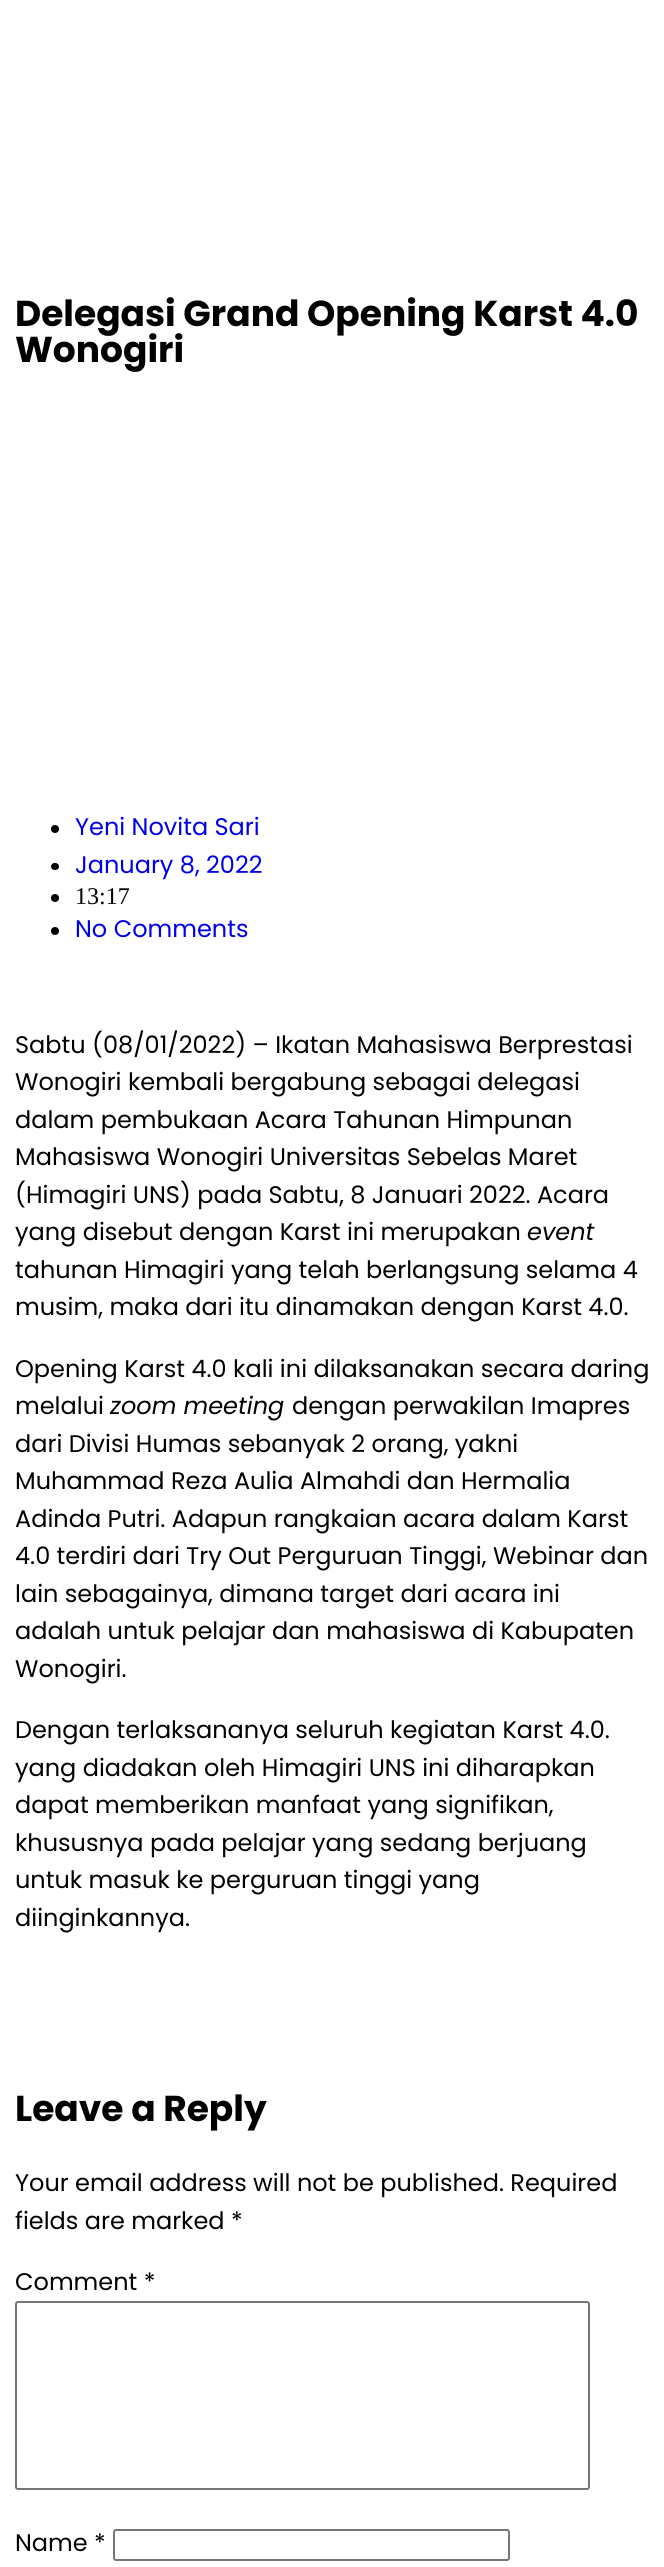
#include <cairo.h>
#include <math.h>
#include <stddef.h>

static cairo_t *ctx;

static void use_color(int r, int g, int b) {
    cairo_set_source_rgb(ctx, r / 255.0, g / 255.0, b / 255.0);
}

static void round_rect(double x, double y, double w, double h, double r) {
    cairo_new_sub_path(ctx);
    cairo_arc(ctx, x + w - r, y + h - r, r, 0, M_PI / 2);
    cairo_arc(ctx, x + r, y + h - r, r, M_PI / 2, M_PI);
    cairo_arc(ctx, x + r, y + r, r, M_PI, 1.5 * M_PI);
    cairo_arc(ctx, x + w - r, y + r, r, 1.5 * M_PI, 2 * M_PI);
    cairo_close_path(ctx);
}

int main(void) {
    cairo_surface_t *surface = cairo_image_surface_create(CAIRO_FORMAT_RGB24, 664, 2567);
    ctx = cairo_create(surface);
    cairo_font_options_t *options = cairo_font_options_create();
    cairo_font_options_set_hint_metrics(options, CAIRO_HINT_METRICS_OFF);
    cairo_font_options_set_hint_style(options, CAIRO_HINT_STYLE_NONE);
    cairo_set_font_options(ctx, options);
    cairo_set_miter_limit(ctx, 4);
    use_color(255, 255, 255);
    cairo_paint(ctx);
    cairo_select_font_face(ctx, "Poppins", CAIRO_FONT_SLANT_NORMAL, CAIRO_FONT_WEIGHT_BOLD);
    cairo_set_font_size(ctx, 36);
    use_color(0, 0, 0);
    cairo_move_to(ctx, 15, 326);
    cairo_show_text(ctx, "Delegasi Grand Opening Karst 4.0");
    cairo_move_to(ctx, 15, 362);
    cairo_show_text(ctx, "Wonogiri");
    cairo_new_path(ctx);
    cairo_arc(ctx, 55, 829, 4, 0, 2 * M_PI);
    cairo_fill(ctx);
    cairo_select_font_face(ctx, "Poppins", CAIRO_FONT_SLANT_NORMAL, CAIRO_FONT_WEIGHT_NORMAL);
    cairo_set_font_size(ctx, 24);
    use_color(0, 0, 238);
    cairo_move_to(ctx, 75, 835);
    cairo_show_text(ctx, "Yeni Novita Sari");
    use_color(0, 0, 0);
    round_rect(51, 863, 8, 7, 3.5);
    cairo_fill(ctx);
    use_color(0, 0, 238);
    cairo_move_to(ctx, 75, 873);
    cairo_show_text(ctx, "January 8, 2022");
    use_color(0, 0, 0);
    cairo_new_path(ctx);
    cairo_arc(ctx, 55, 898, 4, 0, 2 * M_PI);
    cairo_fill(ctx);
    cairo_select_font_face(ctx, "Liberation Serif", CAIRO_FONT_SLANT_NORMAL, CAIRO_FONT_WEIGHT_NORMAL);
    cairo_move_to(ctx, 75, 904);
    cairo_show_text(ctx, "13:17");
    cairo_new_path(ctx);
    cairo_arc(ctx, 55, 931, 4, 0, 2 * M_PI);
    cairo_fill(ctx);
    cairo_select_font_face(ctx, "Poppins", CAIRO_FONT_SLANT_NORMAL, CAIRO_FONT_WEIGHT_NORMAL);
    use_color(0, 0, 238);
    cairo_move_to(ctx, 75, 937);
    cairo_show_text(ctx, "No Comments");
    use_color(0, 0, 0);
    cairo_move_to(ctx, 15, 1053);
    cairo_show_text(ctx, "Sabtu (08/01/2022) – Ikatan Mahasiswa Berprestasi");
    cairo_move_to(ctx, 15, 1090);
    cairo_show_text(ctx, "Wonogiri kembali bergabung sebagai delegasi");
    cairo_move_to(ctx, 15, 1128);
    cairo_show_text(ctx, "dalam pembukaan Acara Tahunan Himpunan");
    cairo_move_to(ctx, 15, 1165);
    cairo_show_text(ctx, "Mahasiswa Wonogiri Universitas Sebelas Maret");
    cairo_move_to(ctx, 15, 1203);
    cairo_show_text(ctx, "(Himagiri UNS) pada Sabtu, 8 Januari 2022. Acara");
    cairo_move_to(ctx, 15, 1240);
    cairo_show_text(ctx, "yang disebut dengan Karst ini merupakan");
    cairo_select_font_face(ctx, "Poppins", CAIRO_FONT_SLANT_ITALIC, CAIRO_FONT_WEIGHT_NORMAL);
    cairo_move_to(ctx, 527, 1240);
    cairo_show_text(ctx, "event");
    cairo_select_font_face(ctx, "Poppins", CAIRO_FONT_SLANT_NORMAL, CAIRO_FONT_WEIGHT_NORMAL);
    cairo_move_to(ctx, 15, 1278);
    cairo_show_text(ctx, "tahunan Himagiri yang telah berlangsung selama 4");
    cairo_move_to(ctx, 15, 1315);
    cairo_show_text(ctx, "musim, maka dari itu dinamakan dengan Karst 4.0.");
    cairo_move_to(ctx, 15, 1377);
    cairo_show_text(ctx, "Opening Karst 4.0 kali ini dilaksanakan secara daring");
    cairo_move_to(ctx, 15, 1414);
    cairo_show_text(ctx, "melalui");
    cairo_select_font_face(ctx, "Poppins", CAIRO_FONT_SLANT_ITALIC, CAIRO_FONT_WEIGHT_NORMAL);
    cairo_move_to(ctx, 110, 1414);
    cairo_show_text(ctx, "zoom meeting");
    cairo_select_font_face(ctx, "Poppins", CAIRO_FONT_SLANT_NORMAL, CAIRO_FONT_WEIGHT_NORMAL);
    cairo_move_to(ctx, 292, 1414);
    cairo_show_text(ctx, "dengan perwakilan Imapres");
    cairo_move_to(ctx, 15, 1452);
    cairo_show_text(ctx, "dari Divisi Humas sebanyak 2 orang, yakni");
    cairo_move_to(ctx, 15, 1489);
    cairo_show_text(ctx, "Muhammad Reza Aulia Almahdi dan Hermalia");
    cairo_move_to(ctx, 15, 1527);
    cairo_show_text(ctx, "Adinda Putri. Adapun rangkaian acara dalam Karst");
    cairo_move_to(ctx, 15, 1564);
    cairo_show_text(ctx, "4.0 terdiri dari Try Out Perguruan Tinggi, Webinar dan");
    cairo_move_to(ctx, 15, 1602);
    cairo_show_text(ctx, "lain sebagainya, dimana target dari acara ini");
    cairo_move_to(ctx, 15, 1639);
    cairo_show_text(ctx, "adalah untuk pelajar dan mahasiswa di Kabupaten");
    cairo_move_to(ctx, 15, 1677);
    cairo_show_text(ctx, "Wonogiri.");
    cairo_move_to(ctx, 15, 1738);
    cairo_show_text(ctx, "Dengan terlaksananya seluruh kegiatan Karst 4.0.");
    cairo_move_to(ctx, 15, 1776);
    cairo_show_text(ctx, "yang diadakan oleh Himagiri UNS ini diharapkan");
    cairo_move_to(ctx, 15, 1813);
    cairo_show_text(ctx, "dapat memberikan manfaat yang signifikan,");
    cairo_move_to(ctx, 15, 1851);
    cairo_show_text(ctx, "khususnya pada pelajar yang sedang berjuang");
    cairo_move_to(ctx, 15, 1888);
    cairo_show_text(ctx, "untuk masuk ke perguruan tinggi yang");
    cairo_move_to(ctx, 15, 1926);
    cairo_show_text(ctx, "diinginkannya.");
    cairo_select_font_face(ctx, "Poppins", CAIRO_FONT_SLANT_NORMAL, CAIRO_FONT_WEIGHT_BOLD);
    cairo_set_font_size(ctx, 36);
    cairo_move_to(ctx, 15, 2121);
    cairo_show_text(ctx, "Leave a Reply");
    cairo_select_font_face(ctx, "Poppins", CAIRO_FONT_SLANT_NORMAL, CAIRO_FONT_WEIGHT_NORMAL);
    cairo_set_font_size(ctx, 24);
    cairo_move_to(ctx, 15, 2191);
    cairo_show_text(ctx, "Your email address will not be published. Required");
    cairo_move_to(ctx, 15, 2229);
    cairo_show_text(ctx, "fields are marked *");
    cairo_move_to(ctx, 15, 2290);
    cairo_show_text(ctx, "Comment *");
    round_rect(16, 2302, 573, 187, 2);
    use_color(118, 118, 118);
    cairo_stroke(ctx);
    use_color(0, 0, 0);
    cairo_move_to(ctx, 15, 2551);
    cairo_show_text(ctx, "Name *");
    round_rect(114, 2530, 395, 30, 2);
    use_color(118, 118, 118);
    cairo_stroke(ctx);
    cairo_surface_write_to_png(surface, "result.png");
    cairo_font_options_destroy(options);
    cairo_destroy(ctx);
    cairo_surface_destroy(surface);
    return 0;
}
